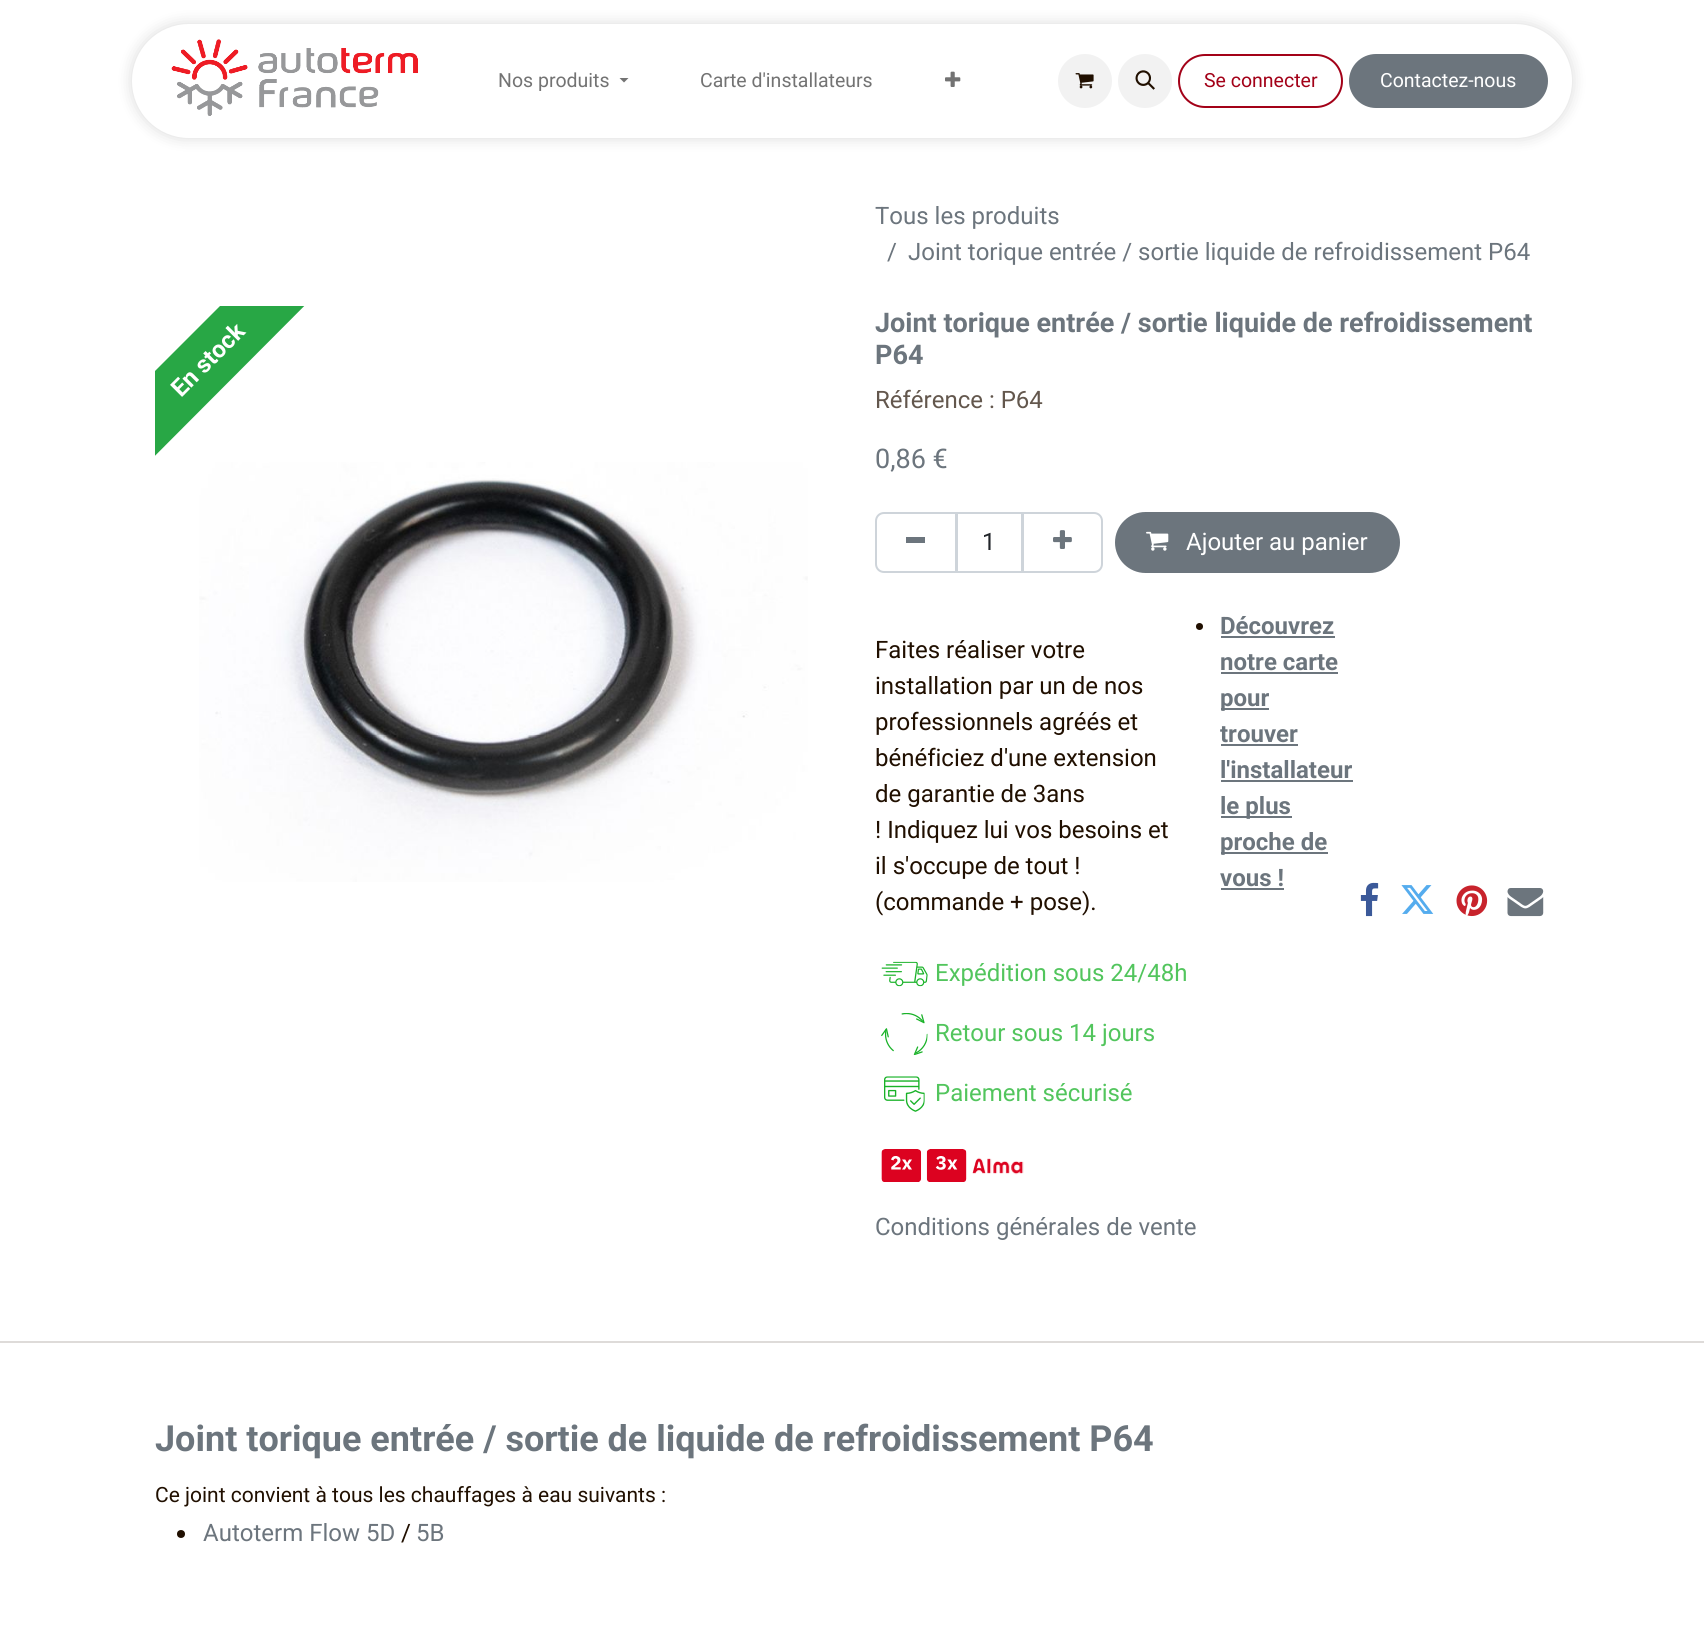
#include <cairo.h>
#include <math.h>
#include <stddef.h>

static cairo_t *ctx;

static void use_color(int r, int g, int b) {
    cairo_set_source_rgb(ctx, r / 255.0, g / 255.0, b / 255.0);
}

static void round_rect(double x, double y, double w, double h, double r) {
    cairo_new_sub_path(ctx);
    cairo_arc(ctx, x + w - r, y + h - r, r, 0, M_PI / 2);
    cairo_arc(ctx, x + r, y + h - r, r, M_PI / 2, M_PI);
    cairo_arc(ctx, x + r, y + r, r, M_PI, 1.5 * M_PI);
    cairo_arc(ctx, x + w - r, y + r, r, 1.5 * M_PI, 2 * M_PI);
    cairo_close_path(ctx);
}

static void shadow(double x, double y, double w, double h, double r, double blur, double alpha) {
    cairo_push_group_with_content(ctx, CAIRO_CONTENT_ALPHA);
    cairo_set_operator(ctx, CAIRO_OPERATOR_SOURCE);
    for (int i = 15; i >= -15 && fmin(w, h) + blur * i / 3 > 0; i -= 2) {
        double e = blur * i / 6;
        cairo_set_source_rgba(ctx, 0, 0, 0, alpha * erfc((i - 1) / 8.5) / 2);
        round_rect(x - e, y - e, w + 2 * e, h + 2 * e, fmax(0, fmin(r + e + blur * .6, fmin(w, h) / 2 + e)));
        cairo_fill(ctx);
    }
    cairo_pattern_t *soft = cairo_pop_group(ctx);
    cairo_mask(ctx, soft);
    cairo_pattern_destroy(soft);
}

static void picture(const char *path, double x, double y, double w, double h) {
    cairo_surface_t *image = cairo_image_surface_create_from_png(path);
    cairo_save(ctx);
    cairo_set_source_surface(ctx, image, x, y);
    cairo_rectangle(ctx, x, y, w, h);
    cairo_fill(ctx);
    cairo_restore(ctx);
    cairo_surface_destroy(image);
}

int main(void) {
    cairo_surface_t *surface = cairo_image_surface_create(CAIRO_FORMAT_RGB24, 1704, 1646);
    ctx = cairo_create(surface);
    cairo_font_options_t *options = cairo_font_options_create();
    cairo_font_options_set_hint_metrics(options, CAIRO_HINT_METRICS_OFF);
    cairo_font_options_set_hint_style(options, CAIRO_HINT_STYLE_NONE);
    cairo_set_font_options(ctx, options);
    cairo_set_miter_limit(ctx, 4);
    use_color(255, 255, 255);
    cairo_paint(ctx);
    use_color(0, 0, 0);
    shadow(132, 24, 1440, 114, 57, 7.5, 0.15);
    use_color(255, 255, 255);
    round_rect(132, 24, 1440, 114, 57);
    cairo_fill(ctx);
    picture("img1.png", 171, 39, 247, 77);
    cairo_select_font_face(ctx, "Roboto", CAIRO_FONT_SLANT_NORMAL, CAIRO_FONT_WEIGHT_NORMAL);
    cairo_set_font_size(ctx, 19.5);
    use_color(115, 115, 115);
    cairo_move_to(ctx, 498, 87);
    cairo_show_text(ctx, "Nos produits");
    cairo_new_path(ctx);
    cairo_move_to(ctx, 619.5, 78);
    cairo_line_to(ctx, 628.5, 78);
    cairo_line_to(ctx, 624, 82.5);
    cairo_close_path(ctx);
    cairo_fill(ctx);
    cairo_move_to(ctx, 700, 87);
    cairo_show_text(ctx, "Carte d'installateurs");
    picture("img2.png", 945, 71, 16, 16);
    use_color(242, 242, 242);
    cairo_arc(ctx, 1085, 81, 27, 0, 2 * M_PI);
    cairo_fill(ctx);
    picture("img3.png", 1075, 73, 19, 16);
    cairo_arc(ctx, 1145, 81, 27, 0, 2 * M_PI);
    cairo_fill(ctx);
    picture("img4.png", 1135, 70, 20, 20);
    round_rect(1179, 55, 163, 52, 26);
    use_color(163, 1, 24);
    cairo_stroke(ctx);
    cairo_move_to(ctx, 1204, 87);
    cairo_show_text(ctx, "Se connecter");
    use_color(108, 117, 125);
    round_rect(1350, 55, 197, 52, 26);
    cairo_fill_preserve(ctx);
    cairo_stroke(ctx);
    use_color(255, 255, 255);
    cairo_move_to(ctx, 1380, 87);
    cairo_show_text(ctx, "Contactez-nous");
    cairo_set_font_size(ctx, 24);
    use_color(108, 117, 125);
    cairo_move_to(ctx, 875, 224);
    cairo_show_text(ctx, "Tous les produits");
    cairo_move_to(ctx, 887, 260);
    cairo_show_text(ctx, "/");
    cairo_move_to(ctx, 908, 260);
    cairo_show_text(ctx, "Joint torique entrée / sortie liquide de refroidissement P64");
    cairo_save(ctx);
    cairo_rectangle(ctx, 155, 306, 675, 750);
    cairo_clip(ctx);
    use_color(40, 167, 69);
    cairo_new_path(ctx);
    cairo_move_to(ctx, 49, 477);
    cairo_line_to(ctx, 326, 200);
    cairo_line_to(ctx, 368, 242);
    cairo_line_to(ctx, 91, 520);
    cairo_close_path(ctx);
    cairo_fill(ctx);
    cairo_restore(ctx);
    cairo_select_font_face(ctx, "Roboto", CAIRO_FONT_SLANT_NORMAL, CAIRO_FONT_WEIGHT_BOLD);
    use_color(255, 255, 255);
    cairo_save(ctx);
    cairo_translate(ctx, 181, 398);
    cairo_rotate(ctx, -45 * M_PI / 180);
    cairo_move_to(ctx, 0, 0);
    cairo_show_text(ctx, "En stock");
    cairo_restore(ctx);
    picture("img5.png", 199, 462, 609, 420);
    cairo_set_font_size(ctx, 27);
    use_color(108, 117, 125);
    cairo_move_to(ctx, 875, 332);
    cairo_show_text(ctx, "Joint torique entrée / sortie liquide de refroidissement");
    cairo_move_to(ctx, 875, 364);
    cairo_show_text(ctx, "P64");
    cairo_select_font_face(ctx, "Roboto", CAIRO_FONT_SLANT_NORMAL, CAIRO_FONT_WEIGHT_NORMAL);
    cairo_set_font_size(ctx, 24);
    use_color(99, 87, 77);
    cairo_move_to(ctx, 875, 408);
    cairo_show_text(ctx, "Référence : P64");
    cairo_set_font_size(ctx, 27);
    use_color(108, 117, 125);
    cairo_move_to(ctx, 875, 468);
    cairo_show_text(ctx, "0,86 €");
    cairo_rectangle(ctx, 957, 513, 65, 59);
    use_color(206, 212, 218);
    cairo_stroke(ctx);
    cairo_new_path(ctx);
    cairo_move_to(ctx, 884, 513);
    cairo_line_to(ctx, 956, 513);
    cairo_line_to(ctx, 956, 572);
    cairo_line_to(ctx, 884, 572);
    cairo_curve_to(ctx, 879.5, 572, 876, 568.5, 876, 564);
    cairo_line_to(ctx, 876, 521);
    cairo_curve_to(ctx, 876, 516.5, 879.5, 513, 884, 513);
    cairo_close_path(ctx);
    cairo_stroke(ctx);
    use_color(108, 117, 125);
    cairo_rectangle(ctx, 906, 537, 19, 6);
    cairo_fill(ctx);
    cairo_set_font_size(ctx, 24);
    use_color(33, 37, 41);
    cairo_move_to(ctx, 982, 550);
    cairo_show_text(ctx, "1");
    cairo_new_path(ctx);
    cairo_move_to(ctx, 1023, 513);
    cairo_line_to(ctx, 1094, 513);
    cairo_curve_to(ctx, 1098.5, 513, 1102, 516.5, 1102, 521);
    cairo_line_to(ctx, 1102, 564);
    cairo_curve_to(ctx, 1102, 568.5, 1098.5, 572, 1094, 572);
    cairo_line_to(ctx, 1023, 572);
    cairo_close_path(ctx);
    use_color(206, 212, 218);
    cairo_stroke(ctx);
    picture("img6.png", 1053, 530, 19, 19);
    use_color(108, 117, 125);
    round_rect(1116, 513, 283, 59, 29.5);
    cairo_fill_preserve(ctx);
    cairo_stroke(ctx);
    picture("img7.png", 1146, 531, 23, 20);
    use_color(255, 255, 255);
    cairo_move_to(ctx, 1186, 550);
    cairo_show_text(ctx, "Ajouter au panier");
    use_color(32, 15, 0);
    cairo_move_to(ctx, 875, 658);
    cairo_show_text(ctx, "Faites réaliser votre");
    cairo_new_path(ctx);
    cairo_arc(ctx, 1199.5, 626.5, 3.5, 0, 2 * M_PI);
    cairo_fill(ctx);
    cairo_select_font_face(ctx, "Roboto", CAIRO_FONT_SLANT_NORMAL, CAIRO_FONT_WEIGHT_BOLD);
    use_color(108, 117, 125);
    cairo_move_to(ctx, 1220, 634);
    cairo_show_text(ctx, "Découvrez");
    cairo_rectangle(ctx, 1221, 636, 114, 2);
    cairo_fill(ctx);
    cairo_move_to(ctx, 1220, 670);
    cairo_show_text(ctx, "notre carte");
    cairo_rectangle(ctx, 1221, 672, 117, 2);
    cairo_fill(ctx);
    cairo_rectangle(ctx, 1221, 708, 48, 2);
    cairo_fill(ctx);
    cairo_move_to(ctx, 1220, 706);
    cairo_show_text(ctx, "pour");
    cairo_move_to(ctx, 1220, 742);
    cairo_show_text(ctx, "trouver");
    cairo_rectangle(ctx, 1221, 744, 77, 2);
    cairo_fill(ctx);
    cairo_move_to(ctx, 1220, 778);
    cairo_show_text(ctx, "l'installateur");
    cairo_rectangle(ctx, 1221, 780, 132, 2);
    cairo_fill(ctx);
    cairo_rectangle(ctx, 1221, 816, 71, 2);
    cairo_fill(ctx);
    cairo_move_to(ctx, 1220, 814);
    cairo_show_text(ctx, "le plus");
    cairo_rectangle(ctx, 1221, 852, 107, 2);
    cairo_fill(ctx);
    cairo_move_to(ctx, 1220, 850);
    cairo_show_text(ctx, "proche de");
    cairo_move_to(ctx, 1220, 886);
    cairo_show_text(ctx, "vous !");
    cairo_rectangle(ctx, 1221, 888, 63, 2);
    cairo_fill(ctx);
    cairo_select_font_face(ctx, "Roboto", CAIRO_FONT_SLANT_NORMAL, CAIRO_FONT_WEIGHT_NORMAL);
    use_color(32, 15, 0);
    cairo_move_to(ctx, 875, 694);
    cairo_show_text(ctx, "installation par un de nos");
    cairo_move_to(ctx, 875, 730);
    cairo_show_text(ctx, "professionnels agréés et");
    cairo_move_to(ctx, 875, 766);
    cairo_show_text(ctx, "bénéficiez d'une extension");
    cairo_move_to(ctx, 875, 802);
    cairo_show_text(ctx, "de garantie de 3ans");
    cairo_move_to(ctx, 875, 838);
    cairo_show_text(ctx, "! Indiquez lui vos besoins et");
    cairo_move_to(ctx, 875, 874);
    cairo_show_text(ctx, "il s'occupe de tout !");
    cairo_move_to(ctx, 875, 910);
    cairo_show_text(ctx, "(commande + pose).");
    picture("img8.png", 1360, 882, 19, 35);
    picture("img9.png", 1401, 885, 33, 29);
    picture("img10.png", 1456, 885, 32, 32);
    picture("img11.png", 1507, 888, 37, 29);
    picture("img12.png", 881, 961, 47, 26);
    use_color(82, 197, 93);
    cairo_move_to(ctx, 935, 981);
    cairo_show_text(ctx, "Expédition sous 24/48h");
    picture("img13.png", 881, 1013, 47, 42);
    cairo_move_to(ctx, 935, 1041);
    cairo_show_text(ctx, "Retour sous 14 jours");
    picture("img14.png", 884, 1076, 41, 36);
    cairo_move_to(ctx, 935, 1101);
    cairo_show_text(ctx, "Paiement sécurisé");
    picture("img15.png", 881, 1149, 143, 33);
    use_color(108, 117, 125);
    cairo_move_to(ctx, 875, 1235);
    cairo_show_text(ctx, "Conditions générales de vente");
    use_color(222, 219, 217);
    cairo_rectangle(ctx, 0, 1341, 1704, 2);
    cairo_fill(ctx);
    cairo_select_font_face(ctx, "Roboto", CAIRO_FONT_SLANT_NORMAL, CAIRO_FONT_WEIGHT_BOLD);
    cairo_set_font_size(ctx, 36);
    use_color(108, 117, 125);
    cairo_move_to(ctx, 155, 1451);
    cairo_show_text(ctx, "Joint torique entrée / sortie de liquide de refroidissement P64");
    cairo_select_font_face(ctx, "Roboto", CAIRO_FONT_SLANT_NORMAL, CAIRO_FONT_WEIGHT_NORMAL);
    cairo_set_font_size(ctx, 21);
    use_color(32, 15, 0);
    cairo_move_to(ctx, 155, 1502);
    cairo_show_text(ctx, "Ce joint convient à tous les chauffages à eau suivants :");
    cairo_new_path(ctx);
    cairo_arc(ctx, 181, 1534, 4, 0, 2 * M_PI);
    cairo_fill(ctx);
    cairo_set_font_size(ctx, 24);
    use_color(108, 117, 125);
    cairo_move_to(ctx, 203, 1541);
    cairo_show_text(ctx, "Autoterm Flow 5D");
    use_color(32, 15, 0);
    cairo_move_to(ctx, 401, 1541);
    cairo_show_text(ctx, "/");
    use_color(108, 117, 125);
    cairo_move_to(ctx, 416, 1541);
    cairo_show_text(ctx, "5B");
    cairo_surface_write_to_png(surface, "result.png");
    cairo_font_options_destroy(options);
    cairo_destroy(ctx);
    cairo_surface_destroy(surface);
    return 0;
}
